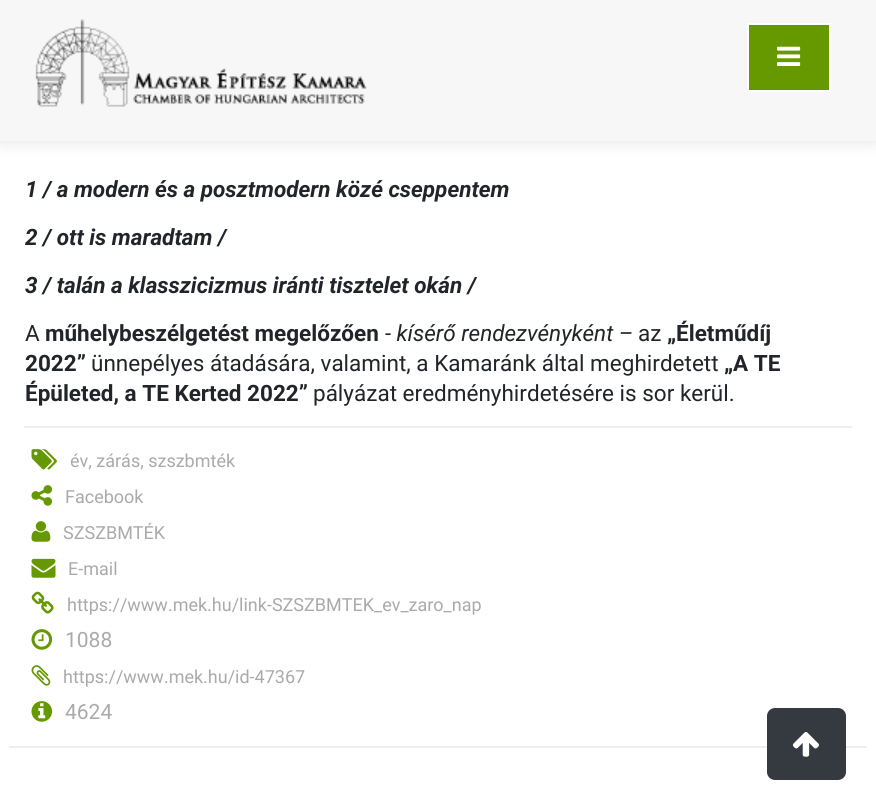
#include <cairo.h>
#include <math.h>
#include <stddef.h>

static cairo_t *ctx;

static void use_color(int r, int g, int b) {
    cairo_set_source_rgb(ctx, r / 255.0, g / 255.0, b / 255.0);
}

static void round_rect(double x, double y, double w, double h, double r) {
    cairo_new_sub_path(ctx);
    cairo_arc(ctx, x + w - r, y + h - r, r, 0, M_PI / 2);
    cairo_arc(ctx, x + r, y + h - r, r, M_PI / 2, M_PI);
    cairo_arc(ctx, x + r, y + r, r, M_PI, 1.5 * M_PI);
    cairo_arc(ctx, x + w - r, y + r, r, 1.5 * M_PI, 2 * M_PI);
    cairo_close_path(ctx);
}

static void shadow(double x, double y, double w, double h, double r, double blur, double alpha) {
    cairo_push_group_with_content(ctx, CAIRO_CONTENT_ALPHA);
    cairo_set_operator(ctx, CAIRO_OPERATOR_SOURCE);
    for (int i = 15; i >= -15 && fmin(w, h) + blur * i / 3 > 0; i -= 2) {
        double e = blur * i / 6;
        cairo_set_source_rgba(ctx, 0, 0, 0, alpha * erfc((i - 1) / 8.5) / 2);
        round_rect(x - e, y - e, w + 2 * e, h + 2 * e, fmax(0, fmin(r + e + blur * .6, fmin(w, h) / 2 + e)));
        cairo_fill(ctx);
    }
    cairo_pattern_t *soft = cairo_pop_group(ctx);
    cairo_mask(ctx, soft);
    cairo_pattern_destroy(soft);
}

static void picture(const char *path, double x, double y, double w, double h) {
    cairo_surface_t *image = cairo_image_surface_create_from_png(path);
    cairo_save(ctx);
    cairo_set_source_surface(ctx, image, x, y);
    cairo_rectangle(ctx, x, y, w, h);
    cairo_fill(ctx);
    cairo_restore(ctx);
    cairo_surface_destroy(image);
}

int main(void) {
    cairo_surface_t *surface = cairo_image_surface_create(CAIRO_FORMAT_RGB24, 876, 810);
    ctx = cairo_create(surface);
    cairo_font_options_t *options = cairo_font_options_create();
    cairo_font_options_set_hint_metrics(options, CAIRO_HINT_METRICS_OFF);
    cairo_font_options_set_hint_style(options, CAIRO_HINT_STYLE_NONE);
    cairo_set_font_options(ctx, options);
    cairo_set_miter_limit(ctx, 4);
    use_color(255, 255, 255);
    cairo_paint(ctx);
    use_color(0, 0, 0);
    shadow(0, 2, 876, 141, 0, 7.5, 0.1);
    use_color(247, 247, 247);
    cairo_rectangle(ctx, 0, 0, 876, 141);
    cairo_fill(ctx);
    picture("img1.png", 35, 19, 332, 88);
    use_color(102, 153, 0);
    cairo_rectangle(ctx, 748, 24, 82, 67);
    cairo_fill_preserve(ctx);
    use_color(255, 255, 255);
    cairo_stroke(ctx);
    picture("img2.png", 777, 46, 24, 20);
    use_color(238, 238, 238);
    cairo_rectangle(ctx, 9, 746, 858, 2);
    cairo_fill(ctx);
    cairo_select_font_face(ctx, "Roboto", CAIRO_FONT_SLANT_ITALIC, CAIRO_FONT_WEIGHT_BOLD);
    cairo_set_font_size(ctx, 22.5);
    use_color(33, 37, 41);
    cairo_move_to(ctx, 25, 197);
    cairo_show_text(ctx, "1 / a modern és a posztmodern közé cseppentem");
    cairo_move_to(ctx, 25, 245);
    cairo_show_text(ctx, "2 / ott is maradtam /");
    cairo_move_to(ctx, 25, 293);
    cairo_show_text(ctx, "3 / talán a klasszicizmus iránti tisztelet okán /");
    cairo_select_font_face(ctx, "Roboto", CAIRO_FONT_SLANT_NORMAL, CAIRO_FONT_WEIGHT_NORMAL);
    cairo_move_to(ctx, 25, 341);
    cairo_show_text(ctx, "A");
    cairo_select_font_face(ctx, "Roboto", CAIRO_FONT_SLANT_NORMAL, CAIRO_FONT_WEIGHT_BOLD);
    cairo_move_to(ctx, 45, 341);
    cairo_show_text(ctx, "műhelybeszélgetést megelőzően");
    cairo_select_font_face(ctx, "Roboto", CAIRO_FONT_SLANT_ITALIC, CAIRO_FONT_WEIGHT_NORMAL);
    cairo_move_to(ctx, 385, 341);
    cairo_show_text(ctx, "- kísérő rendezvényként –");
    cairo_select_font_face(ctx, "Roboto", CAIRO_FONT_SLANT_NORMAL, CAIRO_FONT_WEIGHT_NORMAL);
    cairo_move_to(ctx, 638, 341);
    cairo_show_text(ctx, "az");
    cairo_select_font_face(ctx, "Roboto", CAIRO_FONT_SLANT_NORMAL, CAIRO_FONT_WEIGHT_BOLD);
    cairo_move_to(ctx, 667, 341);
    cairo_show_text(ctx, "„Életműdíj");
    cairo_move_to(ctx, 25, 371);
    cairo_show_text(ctx, "2022”");
    cairo_select_font_face(ctx, "Roboto", CAIRO_FONT_SLANT_NORMAL, CAIRO_FONT_WEIGHT_NORMAL);
    cairo_move_to(ctx, 91, 371);
    cairo_show_text(ctx, "ünnepélyes átadására, valamint, a Kamaránk által meghirdetett");
    cairo_select_font_face(ctx, "Roboto", CAIRO_FONT_SLANT_NORMAL, CAIRO_FONT_WEIGHT_BOLD);
    cairo_move_to(ctx, 724, 371);
    cairo_show_text(ctx, "„A TE");
    cairo_move_to(ctx, 25, 401);
    cairo_show_text(ctx, "Épületed, a TE Kerted 2022”");
    cairo_select_font_face(ctx, "Roboto", CAIRO_FONT_SLANT_NORMAL, CAIRO_FONT_WEIGHT_NORMAL);
    cairo_move_to(ctx, 313, 401);
    cairo_show_text(ctx, "pályázat eredményhirdetésére is sor kerül.");
    use_color(238, 238, 238);
    cairo_rectangle(ctx, 24, 426, 828, 2);
    cairo_fill(ctx);
    picture("img3.png", 31, 449, 26, 21);
    cairo_set_font_size(ctx, 18);
    use_color(170, 170, 170);
    cairo_move_to(ctx, 70, 467);
    cairo_show_text(ctx, "év, zárás, szszbmték");
    picture("img4.png", 31, 485, 22, 21);
    cairo_move_to(ctx, 65, 503);
    cairo_show_text(ctx, "Facebook");
    picture("img5.png", 31, 521, 20, 21);
    cairo_move_to(ctx, 63, 539);
    cairo_show_text(ctx, "SZSZBMTÉK");
    picture("img6.png", 31, 558, 25, 20);
    cairo_move_to(ctx, 68, 575);
    cairo_show_text(ctx, "E-mail");
    picture("img7.png", 31, 591, 23, 23);
    cairo_move_to(ctx, 67, 611);
    cairo_show_text(ctx, "https://www.mek.hu/link-SZSZBMTEK_ev_zaro_nap");
    picture("img8.png", 31, 629, 22, 21);
    cairo_set_font_size(ctx, 21);
    cairo_move_to(ctx, 65, 647);
    cairo_show_text(ctx, "1088");
    picture("img9.png", 31, 665, 20, 21);
    cairo_set_font_size(ctx, 18);
    cairo_move_to(ctx, 63, 683);
    cairo_show_text(ctx, "https://www.mek.hu/id-47367");
    picture("img10.png", 31, 701, 22, 21);
    cairo_set_font_size(ctx, 21);
    cairo_move_to(ctx, 65, 719);
    cairo_show_text(ctx, "4624");
    use_color(52, 58, 64);
    round_rect(768, 709, 77, 70, 7);
    cairo_fill_preserve(ctx);
    cairo_stroke(ctx);
    picture("img11.png", 792, 732, 27, 25);
    cairo_surface_write_to_png(surface, "result.png");
    cairo_font_options_destroy(options);
    cairo_destroy(ctx);
    cairo_surface_destroy(surface);
    return 0;
}
